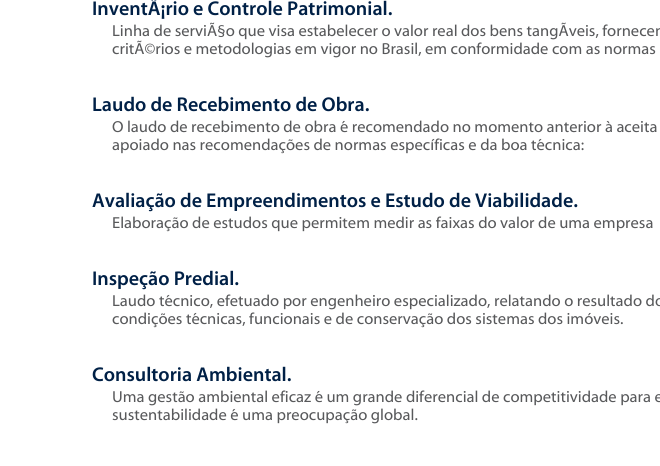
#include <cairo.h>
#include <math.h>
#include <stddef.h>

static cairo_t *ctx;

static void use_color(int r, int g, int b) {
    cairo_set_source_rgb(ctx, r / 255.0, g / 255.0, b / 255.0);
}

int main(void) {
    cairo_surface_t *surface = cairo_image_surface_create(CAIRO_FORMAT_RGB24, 660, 466);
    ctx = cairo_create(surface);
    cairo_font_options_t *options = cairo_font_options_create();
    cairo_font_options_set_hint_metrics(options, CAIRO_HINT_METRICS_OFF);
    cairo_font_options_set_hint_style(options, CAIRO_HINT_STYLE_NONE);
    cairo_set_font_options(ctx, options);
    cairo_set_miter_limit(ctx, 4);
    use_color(255, 255, 255);
    cairo_paint(ctx);
    cairo_select_font_face(ctx, "Myriad SemiBold", CAIRO_FONT_SLANT_NORMAL, CAIRO_FONT_WEIGHT_NORMAL);
    cairo_set_font_size(ctx, 20);
    use_color(0, 32, 70);
    cairo_move_to(ctx, 92, 15);
    cairo_show_text(ctx, "InventÃ¡rio e Controle Patrimonial.");
    cairo_select_font_face(ctx, "Myriad", CAIRO_FONT_SLANT_NORMAL, CAIRO_FONT_WEIGHT_NORMAL);
    cairo_set_font_size(ctx, 16);
    use_color(88, 89, 91);
    cairo_move_to(ctx, 112, 36);
    cairo_show_text(ctx, "Linha de serviÃ§o que visa estabelecer o valor real dos bens tangÃveis, fornecen");
    cairo_move_to(ctx, 112, 54);
    cairo_show_text(ctx, "critÃ©rios e metodologias em vigor no Brasil, em conformidade com as normas");
    cairo_select_font_face(ctx, "Myriad SemiBold", CAIRO_FONT_SLANT_NORMAL, CAIRO_FONT_WEIGHT_NORMAL);
    cairo_set_font_size(ctx, 20);
    use_color(0, 32, 70);
    cairo_move_to(ctx, 92, 111);
    cairo_show_text(ctx, "Laudo de Recebimento de Obra.");
    cairo_select_font_face(ctx, "Myriad", CAIRO_FONT_SLANT_NORMAL, CAIRO_FONT_WEIGHT_NORMAL);
    cairo_set_font_size(ctx, 16);
    use_color(88, 89, 91);
    cairo_move_to(ctx, 112, 132);
    cairo_show_text(ctx, "O laudo de recebimento de obra é recomendado no momento anterior à aceita");
    cairo_move_to(ctx, 112, 150);
    cairo_show_text(ctx, "apoiado nas recomendações de normas específicas e da boa técnica:");
    cairo_select_font_face(ctx, "Myriad SemiBold", CAIRO_FONT_SLANT_NORMAL, CAIRO_FONT_WEIGHT_NORMAL);
    cairo_set_font_size(ctx, 20);
    use_color(0, 32, 70);
    cairo_move_to(ctx, 92, 207);
    cairo_show_text(ctx, "Avaliação de Empreendimentos e Estudo de Viabilidade.");
    cairo_select_font_face(ctx, "Myriad", CAIRO_FONT_SLANT_NORMAL, CAIRO_FONT_WEIGHT_NORMAL);
    cairo_set_font_size(ctx, 16);
    use_color(88, 89, 91);
    cairo_move_to(ctx, 112, 228);
    cairo_show_text(ctx, "Elaboração de estudos que permitem medir as faixas do valor de uma empresa");
    cairo_select_font_face(ctx, "Myriad SemiBold", CAIRO_FONT_SLANT_NORMAL, CAIRO_FONT_WEIGHT_NORMAL);
    cairo_set_font_size(ctx, 20);
    use_color(0, 32, 70);
    cairo_move_to(ctx, 92, 285);
    cairo_show_text(ctx, "Inspeção Predial.");
    cairo_select_font_face(ctx, "Myriad", CAIRO_FONT_SLANT_NORMAL, CAIRO_FONT_WEIGHT_NORMAL);
    cairo_set_font_size(ctx, 16);
    use_color(88, 89, 91);
    cairo_move_to(ctx, 112, 306);
    cairo_show_text(ctx, "Laudo técnico, efetuado por engenheiro especializado, relatando o resultado do");
    cairo_move_to(ctx, 112, 324);
    cairo_show_text(ctx, "condições técnicas, funcionais e de conservação dos sistemas dos imóveis.");
    cairo_select_font_face(ctx, "Myriad SemiBold", CAIRO_FONT_SLANT_NORMAL, CAIRO_FONT_WEIGHT_NORMAL);
    cairo_set_font_size(ctx, 20);
    use_color(0, 32, 70);
    cairo_move_to(ctx, 92, 381);
    cairo_show_text(ctx, "Consultoria Ambiental.");
    cairo_select_font_face(ctx, "Myriad", CAIRO_FONT_SLANT_NORMAL, CAIRO_FONT_WEIGHT_NORMAL);
    cairo_set_font_size(ctx, 16);
    use_color(88, 89, 91);
    cairo_move_to(ctx, 112, 402);
    cairo_show_text(ctx, "Uma gestão ambiental eficaz é um grande diferencial de competitividade para e");
    cairo_move_to(ctx, 112, 420);
    cairo_show_text(ctx, "sustentabilidade é uma preocupação global.");
    cairo_surface_write_to_png(surface, "result.png");
    cairo_font_options_destroy(options);
    cairo_destroy(ctx);
    cairo_surface_destroy(surface);
    return 0;
}
